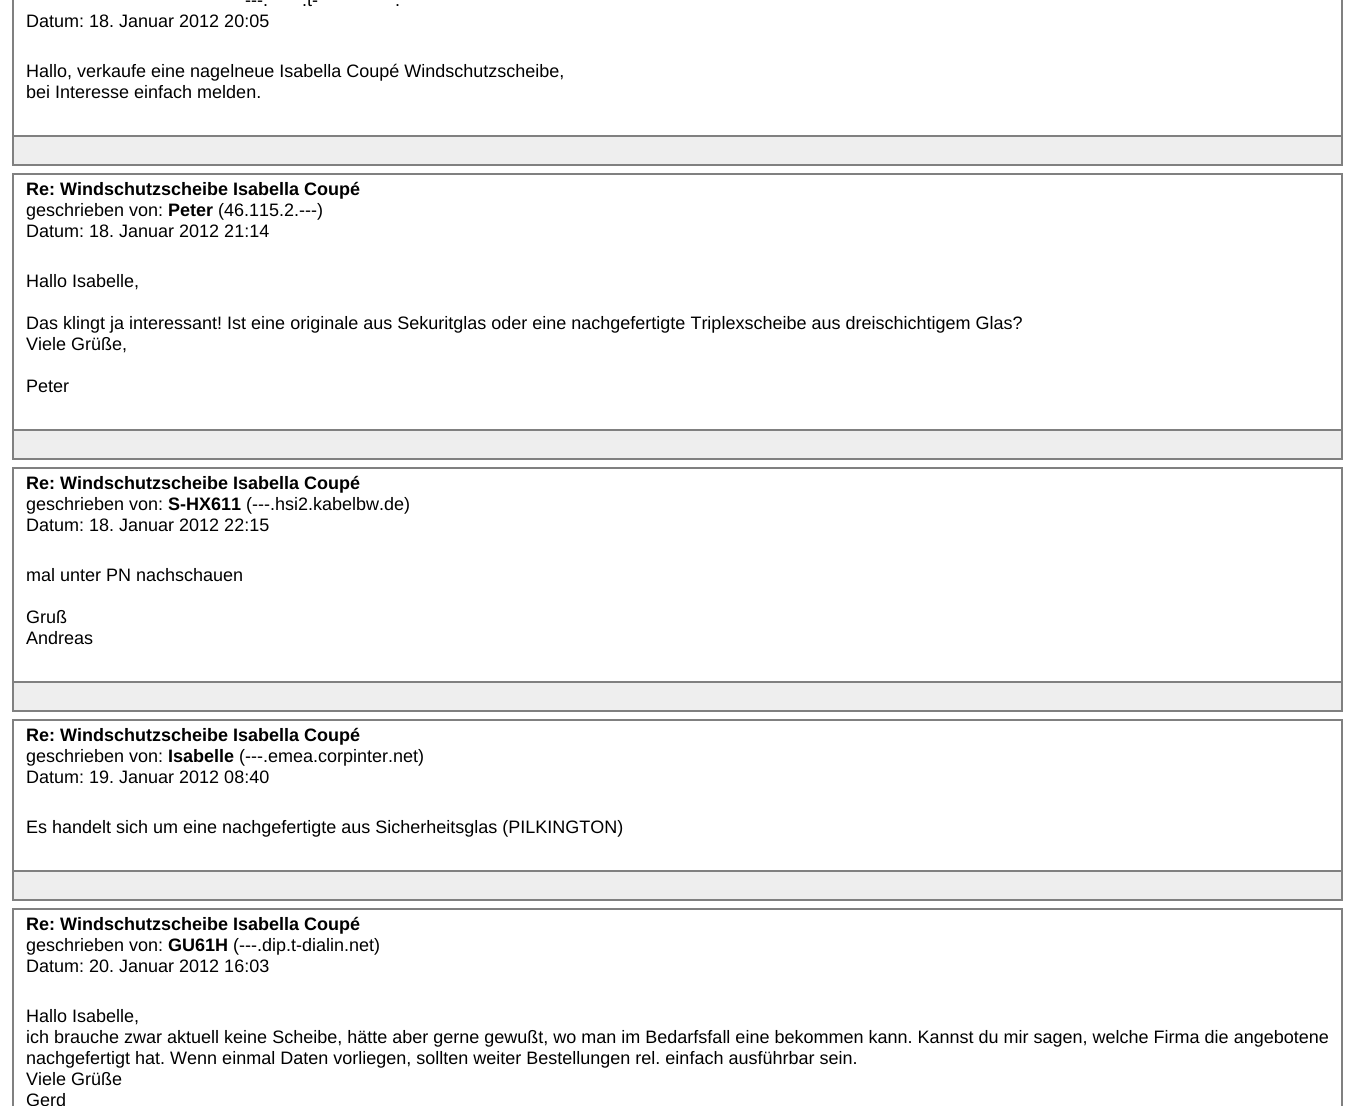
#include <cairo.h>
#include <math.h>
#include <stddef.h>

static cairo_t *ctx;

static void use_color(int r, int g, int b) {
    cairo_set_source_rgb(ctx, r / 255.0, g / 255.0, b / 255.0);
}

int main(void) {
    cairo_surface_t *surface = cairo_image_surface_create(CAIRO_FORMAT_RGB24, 1354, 1106);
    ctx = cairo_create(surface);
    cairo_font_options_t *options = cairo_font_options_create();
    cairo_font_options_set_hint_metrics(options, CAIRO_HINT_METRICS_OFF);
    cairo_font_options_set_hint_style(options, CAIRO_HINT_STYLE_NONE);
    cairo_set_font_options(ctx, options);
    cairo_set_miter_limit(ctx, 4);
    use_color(255, 255, 255);
    cairo_paint(ctx);
    cairo_rectangle(ctx, 13, -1, 1329, 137);
    use_color(128, 128, 128);
    cairo_stroke(ctx);
    cairo_select_font_face(ctx, "Liberation Sans", CAIRO_FONT_SLANT_NORMAL, CAIRO_FONT_WEIGHT_NORMAL);
    cairo_set_font_size(ctx, 18);
    use_color(0, 0, 0);
    cairo_move_to(ctx, 245, 6);
    cairo_show_text(ctx, "---.");
    cairo_move_to(ctx, 302, 6);
    cairo_show_text(ctx, ".t-");
    cairo_move_to(ctx, 395, 6);
    cairo_show_text(ctx, ".");
    cairo_move_to(ctx, 26, 27);
    cairo_show_text(ctx, "Datum: 18. Januar 2012 20:05");
    cairo_move_to(ctx, 26, 77);
    cairo_show_text(ctx, "Hallo, verkaufe eine nagelneue Isabella Coupé Windschutzscheibe,");
    cairo_move_to(ctx, 26, 98);
    cairo_show_text(ctx, "bei Interesse einfach melden.");
    use_color(238, 238, 238);
    cairo_rectangle(ctx, 14, 137, 1327, 27);
    cairo_fill(ctx);
    use_color(128, 128, 128);
    cairo_rectangle(ctx, 1341, 137, 2, 28);
    cairo_fill(ctx);
    cairo_rectangle(ctx, 12, 164, 1331, 2);
    cairo_fill(ctx);
    cairo_rectangle(ctx, 12, 137, 2, 28);
    cairo_fill(ctx);
    cairo_rectangle(ctx, 13, 174, 1329, 256);
    cairo_stroke(ctx);
    cairo_select_font_face(ctx, "Liberation Sans", CAIRO_FONT_SLANT_NORMAL, CAIRO_FONT_WEIGHT_BOLD);
    use_color(0, 0, 0);
    cairo_move_to(ctx, 26, 195);
    cairo_show_text(ctx, "Re: Windschutzscheibe Isabella Coupé");
    cairo_select_font_face(ctx, "Liberation Sans", CAIRO_FONT_SLANT_NORMAL, CAIRO_FONT_WEIGHT_NORMAL);
    cairo_move_to(ctx, 26, 216);
    cairo_show_text(ctx, "geschrieben von:");
    cairo_select_font_face(ctx, "Liberation Sans", CAIRO_FONT_SLANT_NORMAL, CAIRO_FONT_WEIGHT_BOLD);
    cairo_move_to(ctx, 168, 216);
    cairo_show_text(ctx, "Peter");
    cairo_select_font_face(ctx, "Liberation Sans", CAIRO_FONT_SLANT_NORMAL, CAIRO_FONT_WEIGHT_NORMAL);
    cairo_move_to(ctx, 218, 216);
    cairo_show_text(ctx, "(46.115.2.---)");
    cairo_move_to(ctx, 26, 237);
    cairo_show_text(ctx, "Datum: 18. Januar 2012 21:14");
    cairo_move_to(ctx, 26, 287);
    cairo_show_text(ctx, "Hallo Isabelle,");
    cairo_move_to(ctx, 26, 329);
    cairo_show_text(ctx, "Das klingt ja interessant! Ist eine originale aus Sekuritglas oder eine nachgefertigte Triplexscheibe aus dreischichtigem Glas?");
    cairo_move_to(ctx, 26, 350);
    cairo_show_text(ctx, "Viele Grüße,");
    cairo_move_to(ctx, 26, 392);
    cairo_show_text(ctx, "Peter");
    use_color(238, 238, 238);
    cairo_rectangle(ctx, 14, 431, 1327, 27);
    cairo_fill(ctx);
    use_color(128, 128, 128);
    cairo_rectangle(ctx, 1341, 431, 2, 28);
    cairo_fill(ctx);
    cairo_rectangle(ctx, 12, 458, 1331, 2);
    cairo_fill(ctx);
    cairo_rectangle(ctx, 12, 431, 2, 28);
    cairo_fill(ctx);
    cairo_rectangle(ctx, 13, 468, 1329, 214);
    cairo_stroke(ctx);
    cairo_select_font_face(ctx, "Liberation Sans", CAIRO_FONT_SLANT_NORMAL, CAIRO_FONT_WEIGHT_BOLD);
    use_color(0, 0, 0);
    cairo_move_to(ctx, 26, 489);
    cairo_show_text(ctx, "Re: Windschutzscheibe Isabella Coupé");
    cairo_select_font_face(ctx, "Liberation Sans", CAIRO_FONT_SLANT_NORMAL, CAIRO_FONT_WEIGHT_NORMAL);
    cairo_move_to(ctx, 26, 510);
    cairo_show_text(ctx, "geschrieben von:");
    cairo_select_font_face(ctx, "Liberation Sans", CAIRO_FONT_SLANT_NORMAL, CAIRO_FONT_WEIGHT_BOLD);
    cairo_move_to(ctx, 168, 510);
    cairo_show_text(ctx, "S-HX611");
    cairo_select_font_face(ctx, "Liberation Sans", CAIRO_FONT_SLANT_NORMAL, CAIRO_FONT_WEIGHT_NORMAL);
    cairo_move_to(ctx, 246, 510);
    cairo_show_text(ctx, "(---.hsi2.kabelbw.de)");
    cairo_move_to(ctx, 26, 531);
    cairo_show_text(ctx, "Datum: 18. Januar 2012 22:15");
    cairo_move_to(ctx, 26, 581);
    cairo_show_text(ctx, "mal unter PN nachschauen");
    cairo_move_to(ctx, 26, 623);
    cairo_show_text(ctx, "Gruß");
    cairo_move_to(ctx, 26, 644);
    cairo_show_text(ctx, "Andreas");
    use_color(238, 238, 238);
    cairo_rectangle(ctx, 14, 683, 1327, 27);
    cairo_fill(ctx);
    use_color(128, 128, 128);
    cairo_rectangle(ctx, 1341, 683, 2, 28);
    cairo_fill(ctx);
    cairo_rectangle(ctx, 12, 710, 1331, 2);
    cairo_fill(ctx);
    cairo_rectangle(ctx, 12, 683, 2, 28);
    cairo_fill(ctx);
    cairo_rectangle(ctx, 13, 720, 1329, 151);
    cairo_stroke(ctx);
    cairo_select_font_face(ctx, "Liberation Sans", CAIRO_FONT_SLANT_NORMAL, CAIRO_FONT_WEIGHT_BOLD);
    use_color(0, 0, 0);
    cairo_move_to(ctx, 26, 741);
    cairo_show_text(ctx, "Re: Windschutzscheibe Isabella Coupé");
    cairo_select_font_face(ctx, "Liberation Sans", CAIRO_FONT_SLANT_NORMAL, CAIRO_FONT_WEIGHT_NORMAL);
    cairo_move_to(ctx, 26, 762);
    cairo_show_text(ctx, "geschrieben von:");
    cairo_select_font_face(ctx, "Liberation Sans", CAIRO_FONT_SLANT_NORMAL, CAIRO_FONT_WEIGHT_BOLD);
    cairo_move_to(ctx, 168, 762);
    cairo_show_text(ctx, "Isabelle");
    cairo_select_font_face(ctx, "Liberation Sans", CAIRO_FONT_SLANT_NORMAL, CAIRO_FONT_WEIGHT_NORMAL);
    cairo_move_to(ctx, 239, 762);
    cairo_show_text(ctx, "(---.emea.corpinter.net)");
    cairo_move_to(ctx, 26, 783);
    cairo_show_text(ctx, "Datum: 19. Januar 2012 08:40");
    cairo_move_to(ctx, 26, 833);
    cairo_show_text(ctx, "Es handelt sich um eine nachgefertigte aus Sicherheitsglas (PILKINGTON)");
    use_color(238, 238, 238);
    cairo_rectangle(ctx, 14, 872, 1327, 27);
    cairo_fill(ctx);
    use_color(128, 128, 128);
    cairo_rectangle(ctx, 1341, 872, 2, 28);
    cairo_fill(ctx);
    cairo_rectangle(ctx, 12, 899, 1331, 2);
    cairo_fill(ctx);
    cairo_rectangle(ctx, 12, 872, 2, 28);
    cairo_fill(ctx);
    cairo_rectangle(ctx, 13, 909, 1329, 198);
    cairo_stroke(ctx);
    cairo_select_font_face(ctx, "Liberation Sans", CAIRO_FONT_SLANT_NORMAL, CAIRO_FONT_WEIGHT_BOLD);
    use_color(0, 0, 0);
    cairo_move_to(ctx, 26, 930);
    cairo_show_text(ctx, "Re: Windschutzscheibe Isabella Coupé");
    cairo_select_font_face(ctx, "Liberation Sans", CAIRO_FONT_SLANT_NORMAL, CAIRO_FONT_WEIGHT_NORMAL);
    cairo_move_to(ctx, 26, 951);
    cairo_show_text(ctx, "geschrieben von:");
    cairo_select_font_face(ctx, "Liberation Sans", CAIRO_FONT_SLANT_NORMAL, CAIRO_FONT_WEIGHT_BOLD);
    cairo_move_to(ctx, 168, 951);
    cairo_show_text(ctx, "GU61H");
    cairo_select_font_face(ctx, "Liberation Sans", CAIRO_FONT_SLANT_NORMAL, CAIRO_FONT_WEIGHT_NORMAL);
    cairo_move_to(ctx, 233, 951);
    cairo_show_text(ctx, "(---.dip.t-dialin.net)");
    cairo_move_to(ctx, 26, 972);
    cairo_show_text(ctx, "Datum: 20. Januar 2012 16:03");
    cairo_move_to(ctx, 26, 1022);
    cairo_show_text(ctx, "Hallo Isabelle,");
    cairo_move_to(ctx, 26, 1043);
    cairo_show_text(ctx, "ich brauche zwar aktuell keine Scheibe, hätte aber gerne gewußt, wo man im Bedarfsfall eine bekommen kann. Kannst du mir sagen, welche Firma die angebotene");
    cairo_move_to(ctx, 26, 1064);
    cairo_show_text(ctx, "nachgefertigt hat. Wenn einmal Daten vorliegen, sollten weiter Bestellungen rel. einfach ausführbar sein.");
    cairo_move_to(ctx, 26, 1085);
    cairo_show_text(ctx, "Viele Grüße");
    cairo_move_to(ctx, 26, 1106);
    cairo_show_text(ctx, "Gerd");
    cairo_surface_write_to_png(surface, "result.png");
    cairo_font_options_destroy(options);
    cairo_destroy(ctx);
    cairo_surface_destroy(surface);
    return 0;
}
